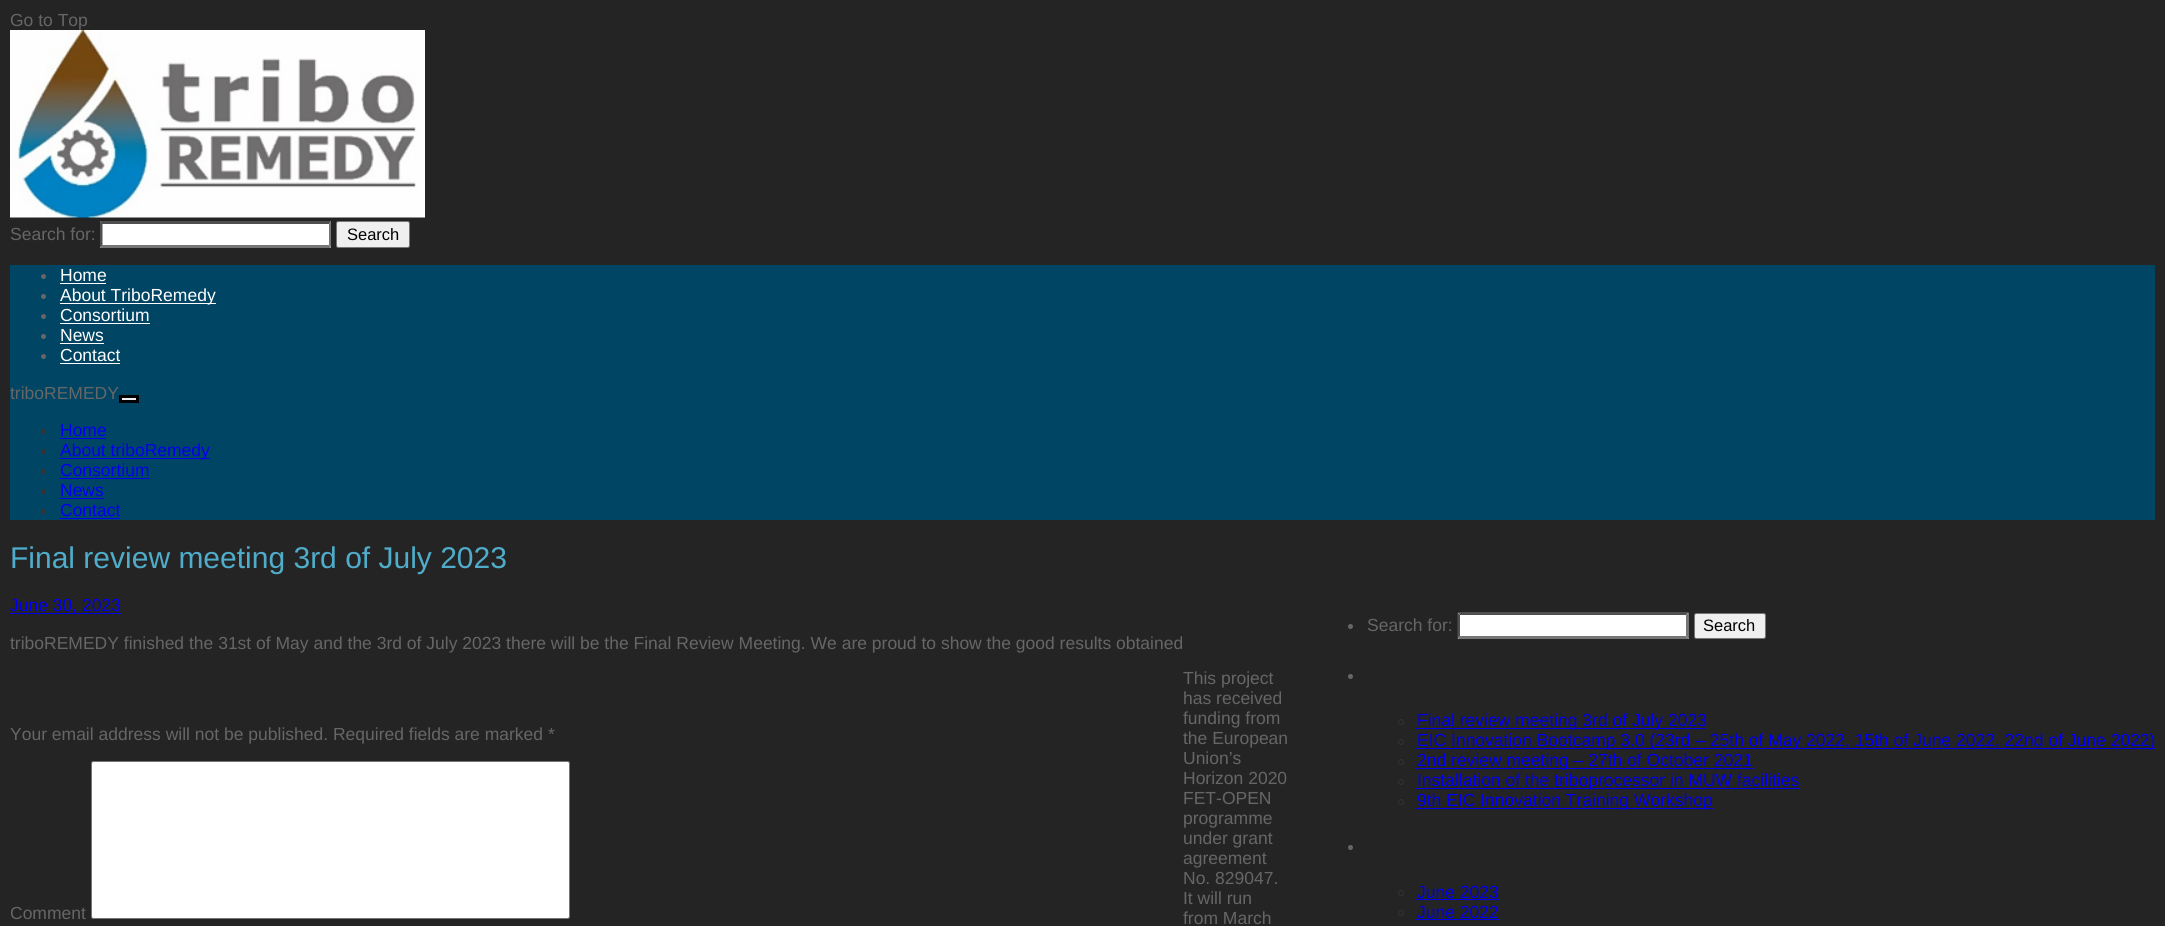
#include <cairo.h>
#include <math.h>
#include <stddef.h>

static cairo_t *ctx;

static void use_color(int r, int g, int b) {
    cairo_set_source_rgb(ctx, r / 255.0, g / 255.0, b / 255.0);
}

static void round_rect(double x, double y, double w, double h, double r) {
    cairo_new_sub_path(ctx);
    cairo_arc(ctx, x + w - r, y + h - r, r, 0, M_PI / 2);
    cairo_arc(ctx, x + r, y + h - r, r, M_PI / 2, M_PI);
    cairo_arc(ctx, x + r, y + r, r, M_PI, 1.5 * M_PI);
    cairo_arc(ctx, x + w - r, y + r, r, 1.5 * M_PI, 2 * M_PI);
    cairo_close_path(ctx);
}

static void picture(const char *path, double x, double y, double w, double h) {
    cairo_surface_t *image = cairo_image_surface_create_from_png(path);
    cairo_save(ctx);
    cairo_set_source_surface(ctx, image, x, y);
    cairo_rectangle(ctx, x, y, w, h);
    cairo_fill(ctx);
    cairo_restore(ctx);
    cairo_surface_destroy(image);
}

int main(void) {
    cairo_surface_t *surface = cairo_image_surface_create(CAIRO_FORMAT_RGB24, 2165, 926);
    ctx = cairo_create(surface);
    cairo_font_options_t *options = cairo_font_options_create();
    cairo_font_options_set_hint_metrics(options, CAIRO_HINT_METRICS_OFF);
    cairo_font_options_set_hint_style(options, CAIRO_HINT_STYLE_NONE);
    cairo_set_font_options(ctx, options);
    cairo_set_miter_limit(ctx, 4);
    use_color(36, 36, 36);
    cairo_paint(ctx);
    cairo_select_font_face(ctx, "Liberation Sans", CAIRO_FONT_SLANT_NORMAL, CAIRO_FONT_WEIGHT_NORMAL);
    cairo_set_font_size(ctx, 17.5);
    use_color(102, 102, 102);
    cairo_move_to(ctx, 10, 26);
    cairo_show_text(ctx, "Go to Top");
    picture("img1.png", 10, 30, 415, 188);
    cairo_move_to(ctx, 10, 240);
    cairo_show_text(ctx, "Search for:");
    use_color(255, 255, 255);
    cairo_rectangle(ctx, 100, 221, 231, 27);
    cairo_fill(ctx);
    use_color(79, 79, 79);
    cairo_new_path(ctx);
    cairo_move_to(ctx, 100, 221);
    cairo_line_to(ctx, 331, 221);
    cairo_line_to(ctx, 329, 224);
    cairo_line_to(ctx, 102, 224);
    cairo_close_path(ctx);
    cairo_fill(ctx);
    use_color(118, 118, 118);
    cairo_new_path(ctx);
    cairo_move_to(ctx, 331, 221);
    cairo_line_to(ctx, 331, 247.5);
    cairo_line_to(ctx, 329, 245);
    cairo_line_to(ctx, 329, 224);
    cairo_close_path(ctx);
    cairo_fill(ctx);
    cairo_new_path(ctx);
    cairo_move_to(ctx, 331, 248);
    cairo_line_to(ctx, 100, 248);
    cairo_line_to(ctx, 102, 245);
    cairo_line_to(ctx, 329, 245);
    cairo_close_path(ctx);
    cairo_fill(ctx);
    use_color(79, 79, 79);
    cairo_new_path(ctx);
    cairo_move_to(ctx, 100, 247.5);
    cairo_line_to(ctx, 100, 221);
    cairo_line_to(ctx, 102.5, 224);
    cairo_line_to(ctx, 102.5, 245);
    cairo_close_path(ctx);
    cairo_fill(ctx);
    use_color(239, 239, 239);
    round_rect(336.5, 221.5, 73, 26, 2);
    cairo_fill_preserve(ctx);
    use_color(118, 118, 118);
    cairo_set_line_width(ctx, 1);
    cairo_stroke(ctx);
    cairo_set_font_size(ctx, 16.5);
    use_color(0, 0, 0);
    cairo_move_to(ctx, 347, 240);
    cairo_show_text(ctx, "Search");
    use_color(0, 69, 100);
    cairo_rectangle(ctx, 10, 265, 2145, 255);
    cairo_fill(ctx);
    use_color(102, 102, 102);
    cairo_arc(ctx, 43.5, 276.5, 2.5, 0, 2 * M_PI);
    cairo_fill(ctx);
    cairo_set_font_size(ctx, 17.5);
    use_color(255, 255, 255);
    cairo_move_to(ctx, 60, 281);
    cairo_show_text(ctx, "Home");
    cairo_rectangle(ctx, 60, 283, 46, 1);
    cairo_fill(ctx);
    use_color(102, 102, 102);
    cairo_arc(ctx, 43.5, 296.5, 2.5, 0, 2 * M_PI);
    cairo_fill(ctx);
    use_color(255, 255, 255);
    cairo_rectangle(ctx, 60, 303, 156, 1);
    cairo_fill(ctx);
    cairo_move_to(ctx, 60, 301);
    cairo_show_text(ctx, "About TriboRemedy");
    use_color(102, 102, 102);
    cairo_new_path(ctx);
    cairo_arc(ctx, 43.5, 316.5, 2.5, 0, 2 * M_PI);
    cairo_fill(ctx);
    use_color(255, 255, 255);
    cairo_move_to(ctx, 60, 321);
    cairo_show_text(ctx, "Consortium");
    cairo_rectangle(ctx, 60, 323, 90, 1);
    cairo_fill(ctx);
    use_color(102, 102, 102);
    cairo_arc(ctx, 43.5, 336.5, 2.5, 0, 2 * M_PI);
    cairo_fill(ctx);
    use_color(255, 255, 255);
    cairo_move_to(ctx, 60, 341);
    cairo_show_text(ctx, "News");
    cairo_rectangle(ctx, 60, 343, 44, 1);
    cairo_fill(ctx);
    use_color(102, 102, 102);
    cairo_arc(ctx, 43.5, 356.5, 2.5, 0, 2 * M_PI);
    cairo_fill(ctx);
    use_color(255, 255, 255);
    cairo_move_to(ctx, 60, 361);
    cairo_show_text(ctx, "Contact");
    cairo_rectangle(ctx, 60, 363, 60, 1);
    cairo_fill(ctx);
    use_color(102, 102, 102);
    cairo_move_to(ctx, 10, 399);
    cairo_show_text(ctx, "triboREMEDY");
    use_color(239, 239, 239);
    cairo_rectangle(ctx, 120.5, 396.5, 17, 5);
    cairo_fill_preserve(ctx);
    use_color(0, 0, 0);
    cairo_set_line_width(ctx, 3);
    cairo_stroke(ctx);
    use_color(51, 51, 51);
    cairo_arc(ctx, 43.5, 431.5, 2.5, 0, 2 * M_PI);
    cairo_fill(ctx);
    use_color(0, 0, 238);
    cairo_move_to(ctx, 60, 436);
    cairo_show_text(ctx, "Home");
    cairo_rectangle(ctx, 60, 438, 46, 1);
    cairo_fill(ctx);
    use_color(51, 51, 51);
    cairo_arc(ctx, 43.5, 451.5, 2.5, 0, 2 * M_PI);
    cairo_fill(ctx);
    use_color(0, 0, 238);
    cairo_rectangle(ctx, 60, 458, 150, 1);
    cairo_fill(ctx);
    cairo_move_to(ctx, 60, 456);
    cairo_show_text(ctx, "About triboRemedy");
    use_color(51, 51, 51);
    cairo_new_path(ctx);
    cairo_arc(ctx, 43.5, 471.5, 2.5, 0, 2 * M_PI);
    cairo_fill(ctx);
    use_color(0, 0, 238);
    cairo_move_to(ctx, 60, 476);
    cairo_show_text(ctx, "Consortium");
    cairo_rectangle(ctx, 60, 478, 90, 1);
    cairo_fill(ctx);
    use_color(51, 51, 51);
    cairo_arc(ctx, 43.5, 491.5, 2.5, 0, 2 * M_PI);
    cairo_fill(ctx);
    use_color(0, 0, 238);
    cairo_move_to(ctx, 60, 496);
    cairo_show_text(ctx, "News");
    cairo_rectangle(ctx, 60, 498, 44, 1);
    cairo_fill(ctx);
    use_color(51, 51, 51);
    cairo_arc(ctx, 43.5, 511.5, 2.5, 0, 2 * M_PI);
    cairo_fill(ctx);
    use_color(0, 0, 238);
    cairo_move_to(ctx, 60, 516);
    cairo_show_text(ctx, "Contact");
    cairo_rectangle(ctx, 60, 518, 60, 1);
    cairo_fill(ctx);
    cairo_set_font_size(ctx, 30);
    use_color(79, 173, 203);
    cairo_move_to(ctx, 10, 568);
    cairo_show_text(ctx, "Final review meeting 3rd of July 2023");
    use_color(0, 0, 238);
    cairo_rectangle(ctx, 10, 613, 111, 1);
    cairo_fill(ctx);
    cairo_set_font_size(ctx, 17.5);
    cairo_move_to(ctx, 10, 611);
    cairo_show_text(ctx, "June 30, 2023");
    use_color(102, 102, 102);
    cairo_move_to(ctx, 10, 649);
    cairo_show_text(ctx, "triboREMEDY finished the 31st of May and the 3rd of July 2023 there will be the Final Review Meeting. We are proud to show the good results obtained");
    cairo_move_to(ctx, 10, 740);
    cairo_show_text(ctx, "Your email address will not be published. Required fields are marked *");
    cairo_move_to(ctx, 10, 919);
    cairo_show_text(ctx, "Comment");
    use_color(255, 255, 255);
    round_rect(91.5, 761.5, 478, 157, 2);
    cairo_fill_preserve(ctx);
    use_color(118, 118, 118);
    cairo_set_line_width(ctx, 1);
    cairo_stroke(ctx);
    use_color(102, 102, 102);
    cairo_arc(ctx, 1350.5, 626.5, 2.5, 0, 2 * M_PI);
    cairo_fill(ctx);
    cairo_move_to(ctx, 1367, 631);
    cairo_show_text(ctx, "Search for:");
    use_color(255, 255, 255);
    cairo_rectangle(ctx, 1458, 613, 231, 26);
    cairo_fill(ctx);
    use_color(79, 79, 79);
    cairo_new_path(ctx);
    cairo_move_to(ctx, 1458, 612);
    cairo_line_to(ctx, 1689, 612);
    cairo_line_to(ctx, 1686, 615);
    cairo_line_to(ctx, 1460, 615);
    cairo_close_path(ctx);
    cairo_fill(ctx);
    use_color(118, 118, 118);
    cairo_new_path(ctx);
    cairo_move_to(ctx, 1689, 612.5);
    cairo_line_to(ctx, 1689, 639);
    cairo_line_to(ctx, 1686, 636);
    cairo_line_to(ctx, 1686, 615);
    cairo_close_path(ctx);
    cairo_fill(ctx);
    cairo_new_path(ctx);
    cairo_move_to(ctx, 1689, 639);
    cairo_line_to(ctx, 1458, 639);
    cairo_line_to(ctx, 1460, 636);
    cairo_line_to(ctx, 1686, 636);
    cairo_close_path(ctx);
    cairo_fill(ctx);
    use_color(79, 79, 79);
    cairo_new_path(ctx);
    cairo_move_to(ctx, 1457.5, 639);
    cairo_line_to(ctx, 1457.5, 612.5);
    cairo_line_to(ctx, 1460, 615);
    cairo_line_to(ctx, 1460, 636);
    cairo_close_path(ctx);
    cairo_fill(ctx);
    use_color(239, 239, 239);
    round_rect(1694.5, 613.5, 71, 25, 2);
    cairo_fill_preserve(ctx);
    use_color(118, 118, 118);
    cairo_stroke(ctx);
    cairo_set_font_size(ctx, 16.5);
    use_color(0, 0, 0);
    cairo_move_to(ctx, 1703, 631);
    cairo_show_text(ctx, "Search");
    use_color(102, 102, 102);
    cairo_new_path(ctx);
    cairo_arc(ctx, 1350.5, 676.5, 2.5, 0, 2 * M_PI);
    cairo_fill(ctx);
    cairo_arc(ctx, 1401, 722, 2.5, 0, 2 * M_PI);
    use_color(51, 51, 51);
    cairo_stroke(ctx);
    use_color(0, 0, 238);
    cairo_rectangle(ctx, 1416, 728, 290, 1);
    cairo_fill(ctx);
    cairo_set_font_size(ctx, 17.5);
    cairo_move_to(ctx, 1417, 726);
    cairo_show_text(ctx, "Final review meeting 3rd of July 2023");
    cairo_new_path(ctx);
    cairo_arc(ctx, 1401, 742, 2.5, 0, 2 * M_PI);
    use_color(51, 51, 51);
    cairo_stroke(ctx);
    use_color(0, 0, 238);
    cairo_rectangle(ctx, 1416, 748, 739, 1);
    cairo_fill(ctx);
    cairo_move_to(ctx, 1417, 746);
    cairo_show_text(ctx, "EIC Innovation Bootcamp 3.0 (23rd – 25th of May 2022, 15th of June 2022, 22nd of June 2022)");
    cairo_new_path(ctx);
    cairo_arc(ctx, 1401, 762, 2.5, 0, 2 * M_PI);
    use_color(51, 51, 51);
    cairo_stroke(ctx);
    use_color(0, 0, 238);
    cairo_rectangle(ctx, 1416, 768, 337, 1);
    cairo_fill(ctx);
    cairo_move_to(ctx, 1417, 766);
    cairo_show_text(ctx, "2nd review meeting – 27th of October 2021");
    cairo_new_path(ctx);
    cairo_arc(ctx, 1401, 782, 2.5, 0, 2 * M_PI);
    use_color(51, 51, 51);
    cairo_stroke(ctx);
    use_color(0, 0, 238);
    cairo_rectangle(ctx, 1416, 788, 383, 1);
    cairo_fill(ctx);
    cairo_move_to(ctx, 1417, 786);
    cairo_show_text(ctx, "Installation of the triboprocessor in MUW facilities");
    cairo_new_path(ctx);
    cairo_arc(ctx, 1401, 802, 2.5, 0, 2 * M_PI);
    use_color(51, 51, 51);
    cairo_stroke(ctx);
    use_color(0, 0, 238);
    cairo_rectangle(ctx, 1416, 808, 297, 1);
    cairo_fill(ctx);
    cairo_move_to(ctx, 1417, 806);
    cairo_show_text(ctx, "9th EIC Innovation Training Workshop");
    use_color(102, 102, 102);
    cairo_new_path(ctx);
    cairo_arc(ctx, 1350.5, 847.5, 2.5, 0, 2 * M_PI);
    cairo_fill(ctx);
    cairo_arc(ctx, 1401, 893, 2.5, 0, 2 * M_PI);
    use_color(51, 51, 51);
    cairo_stroke(ctx);
    use_color(0, 0, 238);
    cairo_move_to(ctx, 1417, 898);
    cairo_show_text(ctx, "June 2023");
    cairo_rectangle(ctx, 1416, 899, 83, 1);
    cairo_fill(ctx);
    cairo_arc(ctx, 1401, 913, 2.5, 0, 2 * M_PI);
    use_color(51, 51, 51);
    cairo_stroke(ctx);
    use_color(0, 0, 238);
    cairo_move_to(ctx, 1417, 918);
    cairo_show_text(ctx, "June 2022");
    cairo_rectangle(ctx, 1416, 919, 83, 1);
    cairo_fill(ctx);
    use_color(102, 102, 102);
    cairo_move_to(ctx, 1183, 684);
    cairo_show_text(ctx, "This project");
    cairo_move_to(ctx, 1183, 704);
    cairo_show_text(ctx, "has received");
    cairo_move_to(ctx, 1183, 724);
    cairo_show_text(ctx, "funding from");
    cairo_move_to(ctx, 1183, 744);
    cairo_show_text(ctx, "the European");
    cairo_move_to(ctx, 1183, 764);
    cairo_show_text(ctx, "Union’s");
    cairo_move_to(ctx, 1183, 784);
    cairo_show_text(ctx, "Horizon 2020");
    cairo_move_to(ctx, 1183, 804);
    cairo_show_text(ctx, "FET-OPEN");
    cairo_move_to(ctx, 1183, 824);
    cairo_show_text(ctx, "programme");
    cairo_move_to(ctx, 1183, 844);
    cairo_show_text(ctx, "under grant");
    cairo_move_to(ctx, 1183, 864);
    cairo_show_text(ctx, "agreement");
    cairo_move_to(ctx, 1183, 884);
    cairo_show_text(ctx, "No. 829047.");
    cairo_move_to(ctx, 1183, 904);
    cairo_show_text(ctx, "It will run");
    cairo_move_to(ctx, 1183, 924);
    cairo_show_text(ctx, "from March");
    cairo_surface_write_to_png(surface, "result.png");
    cairo_font_options_destroy(options);
    cairo_destroy(ctx);
    cairo_surface_destroy(surface);
    return 0;
}
